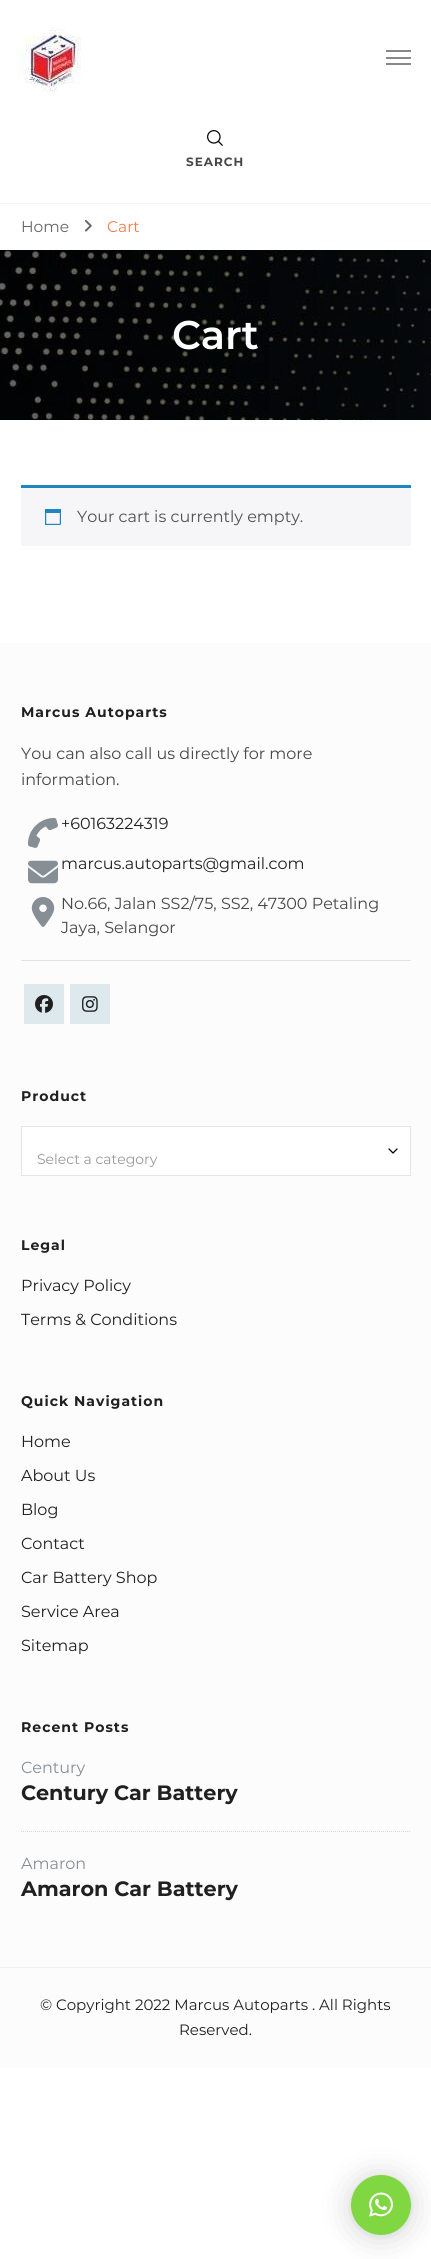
#include <cairo.h>
#include <math.h>
#include <stddef.h>

static cairo_t *ctx;

static void use_color(int r, int g, int b) {
    cairo_set_source_rgb(ctx, r / 255.0, g / 255.0, b / 255.0);
}

static void spaced_text(double x, double y, const char *s, double letter, double word) {
    cairo_move_to(ctx, x, y);
    while (*s) {
        char ch[5] = {0};
        int n = 0;
        do ch[n++] = *s++; while ((*s & 0xC0) == 0x80);
        cairo_show_text(ctx, ch);
        cairo_rel_move_to(ctx, letter + word * (*ch == ' '), 0);
    }
}

static void round_rect(double x, double y, double w, double h, double r) {
    cairo_new_sub_path(ctx);
    cairo_arc(ctx, x + w - r, y + h - r, r, 0, M_PI / 2);
    cairo_arc(ctx, x + r, y + h - r, r, M_PI / 2, M_PI);
    cairo_arc(ctx, x + r, y + r, r, M_PI, 1.5 * M_PI);
    cairo_arc(ctx, x + w - r, y + r, r, 1.5 * M_PI, 2 * M_PI);
    cairo_close_path(ctx);
}

static void shadow(double x, double y, double w, double h, double r, double blur, double alpha) {
    cairo_push_group_with_content(ctx, CAIRO_CONTENT_ALPHA);
    cairo_set_operator(ctx, CAIRO_OPERATOR_SOURCE);
    for (int i = 15; i >= -15 && fmin(w, h) + blur * i / 3 > 0; i -= 2) {
        double e = blur * i / 6;
        cairo_set_source_rgba(ctx, 0, 0, 0, alpha * erfc((i - 1) / 8.5) / 2);
        round_rect(x - e, y - e, w + 2 * e, h + 2 * e, fmax(0, fmin(r + e + blur * .6, fmin(w, h) / 2 + e)));
        cairo_fill(ctx);
    }
    cairo_pattern_t *soft = cairo_pop_group(ctx);
    cairo_mask(ctx, soft);
    cairo_pattern_destroy(soft);
}

static void picture(const char *path, double x, double y, double w, double h) {
    cairo_surface_t *image = cairo_image_surface_create_from_png(path);
    cairo_save(ctx);
    cairo_set_source_surface(ctx, image, x, y);
    cairo_rectangle(ctx, x, y, w, h);
    cairo_fill(ctx);
    cairo_restore(ctx);
    cairo_surface_destroy(image);
}

int main(void) {
    cairo_surface_t *surface = cairo_image_surface_create(CAIRO_FORMAT_RGB24, 431, 2259);
    ctx = cairo_create(surface);
    cairo_font_options_t *options = cairo_font_options_create();
    cairo_font_options_set_hint_metrics(options, CAIRO_HINT_METRICS_OFF);
    cairo_font_options_set_hint_style(options, CAIRO_HINT_STYLE_NONE);
    cairo_set_font_options(ctx, options);
    cairo_set_miter_limit(ctx, 4);
    use_color(255, 255, 255);
    cairo_paint(ctx);
    use_color(242, 242, 242);
    cairo_rectangle(ctx, 0, 203, 431, 1);
    cairo_fill(ctx);
    picture("img1.png", 17, 28, 64, 64);
    use_color(136, 136, 136);
    cairo_rectangle(ctx, 386, 50, 25, 2);
    cairo_fill(ctx);
    cairo_rectangle(ctx, 386, 57, 25, 2);
    cairo_fill(ctx);
    cairo_rectangle(ctx, 386, 63, 25, 2);
    cairo_fill(ctx);
    picture("img2.png", 207, 130, 16, 16);
    cairo_select_font_face(ctx, "Montserrat", CAIRO_FONT_SLANT_NORMAL, CAIRO_FONT_WEIGHT_BOLD);
    cairo_set_font_size(ctx, 12);
    use_color(71, 71, 71);
    spaced_text(186, 166, "SEARCH", 1, 0);
    cairo_select_font_face(ctx, "Montserrat", CAIRO_FONT_SLANT_NORMAL, CAIRO_FONT_WEIGHT_NORMAL);
    cairo_set_font_size(ctx, 15.5);
    use_color(102, 102, 102);
    cairo_move_to(ctx, 21, 232);
    cairo_show_text(ctx, "Home");
    picture("img3.png", 85, 220, 7, 12);
    use_color(238, 127, 75);
    cairo_move_to(ctx, 107, 232);
    cairo_show_text(ctx, "Cart");
    picture("img4.png", 0, 250, 431, 170);
    cairo_select_font_face(ctx, "Montserrat SemiBold", CAIRO_FONT_SLANT_NORMAL, CAIRO_FONT_WEIGHT_NORMAL);
    cairo_set_font_size(ctx, 40);
    use_color(255, 255, 255);
    cairo_move_to(ctx, 172, 349);
    cairo_show_text(ctx, "Cart");
    use_color(246, 245, 248);
    cairo_rectangle(ctx, 21, 488, 390, 58);
    cairo_fill(ctx);
    use_color(30, 133, 190);
    cairo_rectangle(ctx, 21, 485, 390, 3);
    cairo_fill(ctx);
    picture("img5.png", 45, 509, 16, 16);
    cairo_select_font_face(ctx, "Montserrat", CAIRO_FONT_SLANT_NORMAL, CAIRO_FONT_WEIGHT_NORMAL);
    cairo_set_font_size(ctx, 16);
    use_color(81, 81, 81);
    cairo_move_to(ctx, 77, 522);
    cairo_show_text(ctx, "Your cart is currently empty.");
    use_color(252, 252, 252);
    cairo_rectangle(ctx, 0, 643, 431, 1425);
    cairo_fill(ctx);
    cairo_select_font_face(ctx, "Montserrat", CAIRO_FONT_SLANT_NORMAL, CAIRO_FONT_WEIGHT_BOLD);
    cairo_set_font_size(ctx, 14);
    use_color(32, 32, 32);
    spaced_text(21, 717, "Marcus Autoparts", 1, 0);
    cairo_select_font_face(ctx, "Montserrat", CAIRO_FONT_SLANT_NORMAL, CAIRO_FONT_WEIGHT_NORMAL);
    cairo_set_font_size(ctx, 16);
    use_color(71, 71, 71);
    cairo_move_to(ctx, 21, 759);
    cairo_show_text(ctx, "You can also call us directly for more");
    cairo_move_to(ctx, 21, 785);
    cairo_show_text(ctx, "information.");
    picture("img6.png", 28, 818, 30, 30);
    use_color(32, 32, 32);
    cairo_move_to(ctx, 61, 829);
    cairo_show_text(ctx, "+60163224319");
    picture("img7.png", 28, 860, 30, 24);
    cairo_move_to(ctx, 61, 869);
    cairo_show_text(ctx, "marcus.autoparts@gmail.com");
    picture("img8.png", 31, 897, 24, 30);
    use_color(71, 71, 71);
    cairo_move_to(ctx, 61, 909);
    cairo_show_text(ctx, "No.66, Jalan SS2/75, SS2, 47300 Petaling");
    cairo_move_to(ctx, 61, 933);
    cairo_show_text(ctx, "Jaya, Selangor");
    use_color(227, 227, 227);
    cairo_rectangle(ctx, 21, 960, 390, 1);
    cairo_fill(ctx);
    use_color(221, 233, 237);
    cairo_rectangle(ctx, 24, 984, 40, 40);
    cairo_fill(ctx);
    picture("img9.png", 35, 995, 18, 18);
    cairo_rectangle(ctx, 70, 984, 40, 40);
    cairo_fill(ctx);
    picture("img10.png", 82, 996, 16, 16);
    cairo_select_font_face(ctx, "Montserrat", CAIRO_FONT_SLANT_NORMAL, CAIRO_FONT_WEIGHT_BOLD);
    cairo_set_font_size(ctx, 14);
    use_color(32, 32, 32);
    spaced_text(21, 1101, "Product", 1, 0);
    use_color(255, 255, 255);
    cairo_rectangle(ctx, 21.5, 1126.5, 389, 49);
    cairo_fill_preserve(ctx);
    use_color(230, 230, 230);
    cairo_set_line_width(ctx, 1);
    cairo_stroke(ctx);
    cairo_new_path(ctx);
    cairo_move_to(ctx, 389, 1149);
    cairo_line_to(ctx, 393, 1153);
    cairo_line_to(ctx, 397, 1149);
    use_color(0, 0, 0);
    cairo_set_line_width(ctx, 1.3);
    cairo_set_line_cap(ctx, CAIRO_LINE_CAP_ROUND);
    cairo_set_line_join(ctx, CAIRO_LINE_JOIN_ROUND);
    cairo_stroke(ctx);
    cairo_select_font_face(ctx, "Montserrat", CAIRO_FONT_SLANT_NORMAL, CAIRO_FONT_WEIGHT_NORMAL);
    use_color(153, 153, 153);
    cairo_move_to(ctx, 37, 1164);
    cairo_show_text(ctx, "Select a category");
    cairo_select_font_face(ctx, "Montserrat", CAIRO_FONT_SLANT_NORMAL, CAIRO_FONT_WEIGHT_BOLD);
    use_color(32, 32, 32);
    spaced_text(21, 1250, "Legal", 1, 0);
    cairo_select_font_face(ctx, "Montserrat", CAIRO_FONT_SLANT_NORMAL, CAIRO_FONT_WEIGHT_NORMAL);
    cairo_set_font_size(ctx, 16);
    cairo_move_to(ctx, 21, 1291);
    cairo_show_text(ctx, "Privacy Policy");
    cairo_move_to(ctx, 21, 1325);
    cairo_show_text(ctx, "Terms & Conditions");
    cairo_select_font_face(ctx, "Montserrat", CAIRO_FONT_SLANT_NORMAL, CAIRO_FONT_WEIGHT_BOLD);
    cairo_set_font_size(ctx, 14);
    spaced_text(21, 1406, "Quick Navigation", 1, 0);
    cairo_select_font_face(ctx, "Montserrat", CAIRO_FONT_SLANT_NORMAL, CAIRO_FONT_WEIGHT_NORMAL);
    cairo_set_font_size(ctx, 16);
    cairo_move_to(ctx, 21, 1447);
    cairo_show_text(ctx, "Home");
    cairo_move_to(ctx, 21, 1481);
    cairo_show_text(ctx, "About Us");
    cairo_move_to(ctx, 21, 1515);
    cairo_show_text(ctx, "Blog");
    cairo_move_to(ctx, 21, 1549);
    cairo_show_text(ctx, "Contact");
    cairo_move_to(ctx, 21, 1583);
    cairo_show_text(ctx, "Car Battery Shop");
    cairo_move_to(ctx, 21, 1617);
    cairo_show_text(ctx, "Service Area");
    cairo_move_to(ctx, 21, 1651);
    cairo_show_text(ctx, "Sitemap");
    cairo_select_font_face(ctx, "Montserrat", CAIRO_FONT_SLANT_NORMAL, CAIRO_FONT_WEIGHT_BOLD);
    cairo_set_font_size(ctx, 14);
    spaced_text(21, 1732, "Recent Posts", 1, 0);
    cairo_new_path(ctx);
    cairo_move_to(ctx, 21, 1831.5);
    cairo_line_to(ctx, 411, 1831.5);
    use_color(214, 214, 214);
    cairo_set_line_width(ctx, 1);
    cairo_set_line_cap(ctx, CAIRO_LINE_CAP_BUTT);
    cairo_set_line_join(ctx, CAIRO_LINE_JOIN_MITER);
    cairo_set_dash(ctx, (double[]){1, 1}, 2, 0);
    cairo_stroke(ctx);
    cairo_select_font_face(ctx, "Montserrat", CAIRO_FONT_SLANT_NORMAL, CAIRO_FONT_WEIGHT_NORMAL);
    cairo_set_font_size(ctx, 16);
    use_color(134, 142, 150);
    cairo_move_to(ctx, 21, 1773);
    cairo_show_text(ctx, "Century");
    cairo_select_font_face(ctx, "Montserrat", CAIRO_FONT_SLANT_NORMAL, CAIRO_FONT_WEIGHT_BOLD);
    cairo_set_font_size(ctx, 20.75);
    use_color(32, 32, 32);
    cairo_move_to(ctx, 21, 1800);
    cairo_show_text(ctx, "Century Car Battery");
    cairo_select_font_face(ctx, "Montserrat", CAIRO_FONT_SLANT_NORMAL, CAIRO_FONT_WEIGHT_NORMAL);
    cairo_set_font_size(ctx, 16);
    use_color(134, 142, 150);
    cairo_move_to(ctx, 21, 1869);
    cairo_show_text(ctx, "Amaron");
    cairo_select_font_face(ctx, "Montserrat", CAIRO_FONT_SLANT_NORMAL, CAIRO_FONT_WEIGHT_BOLD);
    cairo_set_font_size(ctx, 20.75);
    use_color(32, 32, 32);
    cairo_move_to(ctx, 21, 1896);
    cairo_show_text(ctx, "Amaron Car Battery");
    use_color(240, 241, 242);
    cairo_rectangle(ctx, 0, 1967, 431, 1);
    cairo_fill(ctx);
    cairo_select_font_face(ctx, "Montserrat", CAIRO_FONT_SLANT_NORMAL, CAIRO_FONT_WEIGHT_NORMAL);
    cairo_set_font_size(ctx, 15);
    use_color(32, 32, 32);
    cairo_move_to(ctx, 40, 2010);
    cairo_show_text(ctx, "© Copyright 2022 Marcus Autoparts . All Rights");
    cairo_move_to(ctx, 179, 2035);
    cairo_show_text(ctx, "Reserved.");
    use_color(0, 0, 0);
    shadow(351, 2177, 60, 60, 30, 16, 0.16);
    shadow(351, 2176, 60, 60, 30, 3, 0.06);
    use_color(129, 215, 66);
    cairo_arc(ctx, 381, 2205, 30, 0, 2 * M_PI);
    cairo_fill(ctx);
    picture("img11.png", 369, 2192, 24, 25);
    cairo_surface_write_to_png(surface, "result.png");
    cairo_font_options_destroy(options);
    cairo_destroy(ctx);
    cairo_surface_destroy(surface);
    return 0;
}
